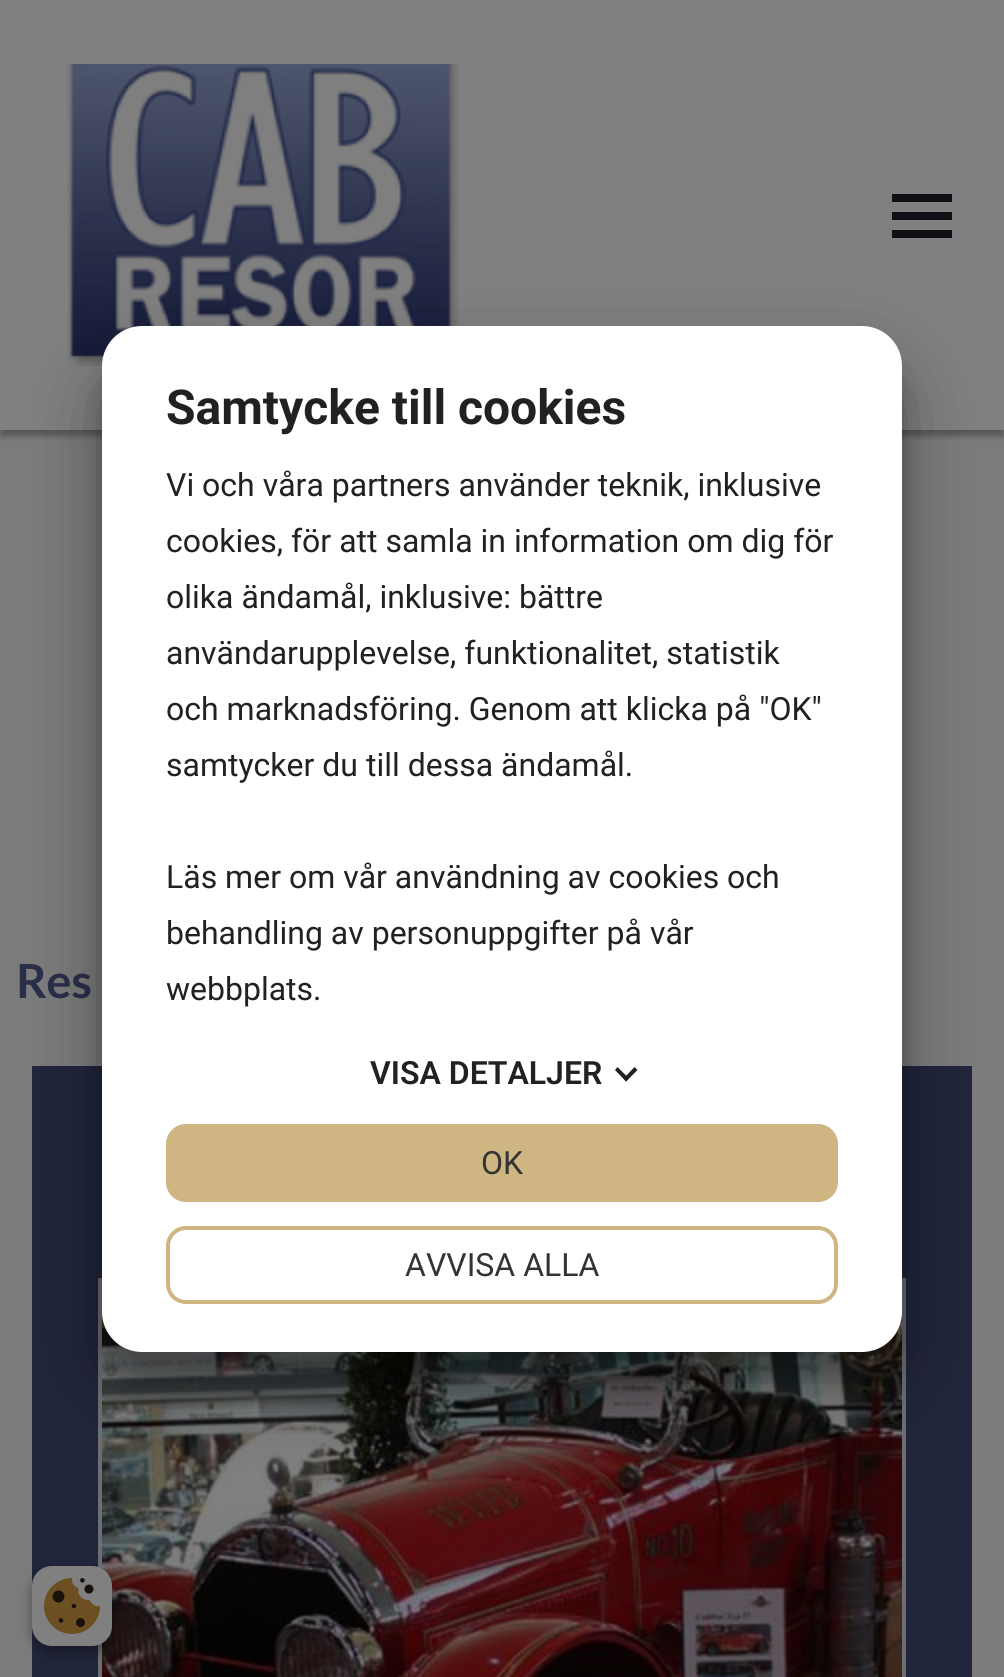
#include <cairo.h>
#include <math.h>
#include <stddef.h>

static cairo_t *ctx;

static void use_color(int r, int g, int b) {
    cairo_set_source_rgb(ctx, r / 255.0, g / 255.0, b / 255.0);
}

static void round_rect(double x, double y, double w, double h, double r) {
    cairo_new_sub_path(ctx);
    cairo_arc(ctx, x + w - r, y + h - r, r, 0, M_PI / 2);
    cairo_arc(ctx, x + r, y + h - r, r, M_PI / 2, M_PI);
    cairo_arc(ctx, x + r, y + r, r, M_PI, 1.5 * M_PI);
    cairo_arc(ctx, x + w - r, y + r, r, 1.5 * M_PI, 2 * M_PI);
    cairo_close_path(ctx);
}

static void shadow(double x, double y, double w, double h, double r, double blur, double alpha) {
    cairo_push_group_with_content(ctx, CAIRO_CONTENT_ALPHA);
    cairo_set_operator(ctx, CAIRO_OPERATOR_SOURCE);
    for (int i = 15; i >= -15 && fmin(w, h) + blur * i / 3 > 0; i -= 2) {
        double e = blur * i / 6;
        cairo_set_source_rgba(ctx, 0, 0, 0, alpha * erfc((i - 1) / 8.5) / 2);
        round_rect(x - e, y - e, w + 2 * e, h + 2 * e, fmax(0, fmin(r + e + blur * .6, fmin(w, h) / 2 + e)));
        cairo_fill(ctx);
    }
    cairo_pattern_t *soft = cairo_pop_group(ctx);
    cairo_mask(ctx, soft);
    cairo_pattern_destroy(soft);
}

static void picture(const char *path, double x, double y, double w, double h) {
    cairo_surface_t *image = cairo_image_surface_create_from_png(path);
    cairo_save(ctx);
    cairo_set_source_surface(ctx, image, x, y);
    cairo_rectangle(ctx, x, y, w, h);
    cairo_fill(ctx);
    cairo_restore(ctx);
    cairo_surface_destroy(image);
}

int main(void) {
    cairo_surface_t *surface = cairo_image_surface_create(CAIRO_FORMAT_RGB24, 1004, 1677);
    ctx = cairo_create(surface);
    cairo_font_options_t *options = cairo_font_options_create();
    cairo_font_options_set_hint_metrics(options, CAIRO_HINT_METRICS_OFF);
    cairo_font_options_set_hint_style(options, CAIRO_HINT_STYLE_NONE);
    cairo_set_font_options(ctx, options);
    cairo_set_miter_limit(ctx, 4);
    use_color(123, 123, 123);
    cairo_paint(ctx);
    use_color(0, 0, 0);
    shadow(0, 6, 1004, 430, 0, 3, 0.3);
    use_color(128, 128, 128);
    cairo_rectangle(ctx, 0, 0, 1004, 430);
    cairo_fill(ctx);
    picture("img1.png", 67, 64, 392, 302);
    use_color(15, 15, 22);
    cairo_rectangle(ctx, 892, 194, 60, 8);
    cairo_fill(ctx);
    cairo_rectangle(ctx, 892, 212, 60, 8);
    cairo_fill(ctx);
    cairo_rectangle(ctx, 892, 230, 60, 8);
    cairo_fill(ctx);
    cairo_select_font_face(ctx, "Lato", CAIRO_FONT_SLANT_NORMAL, CAIRO_FONT_WEIGHT_BOLD);
    cairo_set_font_size(ctx, 47);
    use_color(41, 47, 73);
    cairo_move_to(ctx, 16, 998);
    cairo_show_text(ctx, "Res");
    use_color(33, 37, 59);
    cairo_rectangle(ctx, 32, 1066, 940, 611);
    cairo_fill(ctx);
    cairo_rectangle(ctx, 100, 1280, 804, 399);
    use_color(109, 110, 114);
    cairo_set_line_width(ctx, 4);
    cairo_stroke(ctx);
    picture("img2.png", 102, 1312, 800, 365);
    use_color(0, 0, 0);
    shadow(102, 356, 800, 1026, 40, 12, 0.22);
    shadow(102, 364, 800, 1026, 40, 38, 0.3);
    use_color(255, 255, 255);
    round_rect(102, 326, 800, 1026, 40);
    cairo_fill(ctx);
    cairo_select_font_face(ctx, "Roboto", CAIRO_FONT_SLANT_NORMAL, CAIRO_FONT_WEIGHT_BOLD);
    cairo_set_font_size(ctx, 48);
    use_color(33, 33, 33);
    cairo_move_to(ctx, 166, 424);
    cairo_show_text(ctx, "Samtycke till cookies");
    cairo_select_font_face(ctx, "Roboto", CAIRO_FONT_SLANT_NORMAL, CAIRO_FONT_WEIGHT_NORMAL);
    cairo_set_font_size(ctx, 32);
    cairo_move_to(ctx, 166, 496);
    cairo_show_text(ctx, "Vi och våra partners använder teknik, inklusive");
    cairo_move_to(ctx, 166, 552);
    cairo_show_text(ctx, "cookies, för att samla in information om dig för");
    cairo_move_to(ctx, 166, 608);
    cairo_show_text(ctx, "olika ändamål, inklusive: bättre");
    cairo_move_to(ctx, 166, 664);
    cairo_show_text(ctx, "användarupplevelse, funktionalitet, statistik");
    cairo_move_to(ctx, 166, 720);
    cairo_show_text(ctx, "och marknadsföring. Genom att klicka på \"OK\"");
    cairo_move_to(ctx, 166, 776);
    cairo_show_text(ctx, "samtycker du till dessa ändamål.");
    cairo_move_to(ctx, 166, 888);
    cairo_show_text(ctx, "Läs mer om vår användning av cookies och");
    cairo_move_to(ctx, 166, 944);
    cairo_show_text(ctx, "behandling av personuppgifter på vår");
    cairo_move_to(ctx, 166, 1000);
    cairo_show_text(ctx, "webbplats.");
    cairo_select_font_face(ctx, "Roboto SemiBold", CAIRO_FONT_SLANT_NORMAL, CAIRO_FONT_WEIGHT_NORMAL);
    cairo_move_to(ctx, 370, 1084);
    cairo_show_text(ctx, "VISA DETALJER");
    cairo_new_path(ctx);
    cairo_move_to(ctx, 634.5, 1067);
    cairo_line_to(ctx, 637.5, 1070);
    cairo_line_to(ctx, 626, 1081.5);
    cairo_line_to(ctx, 623.5, 1078.5);
    cairo_close_path(ctx);
    cairo_fill(ctx);
    cairo_new_path(ctx);
    cairo_move_to(ctx, 617.5, 1067);
    cairo_line_to(ctx, 629, 1078.5);
    cairo_line_to(ctx, 626, 1081.5);
    cairo_line_to(ctx, 615, 1070);
    cairo_close_path(ctx);
    cairo_fill(ctx);
    use_color(206, 181, 130);
    round_rect(168, 1126, 668, 74, 18);
    cairo_fill_preserve(ctx);
    cairo_stroke(ctx);
    cairo_select_font_face(ctx, "Roboto", CAIRO_FONT_SLANT_NORMAL, CAIRO_FONT_WEIGHT_NORMAL);
    use_color(51, 51, 51);
    cairo_move_to(ctx, 481, 1174);
    cairo_show_text(ctx, "OK");
    round_rect(168, 1228, 668, 74, 18);
    use_color(206, 181, 130);
    cairo_stroke(ctx);
    use_color(51, 51, 51);
    cairo_move_to(ctx, 405, 1276);
    cairo_show_text(ctx, "AVVISA ALLA");
    use_color(0, 0, 0);
    shadow(32, 1572, 80, 80, 20, 6, 0.23);
    shadow(32, 1572, 80, 80, 20, 6, 0.16);
    use_color(128, 128, 128);
    round_rect(32, 1566, 80, 80, 20);
    cairo_fill(ctx);
    picture("img3.png", 44, 1578, 56, 56);
    cairo_surface_write_to_png(surface, "result.png");
    cairo_font_options_destroy(options);
    cairo_destroy(ctx);
    cairo_surface_destroy(surface);
    return 0;
}
